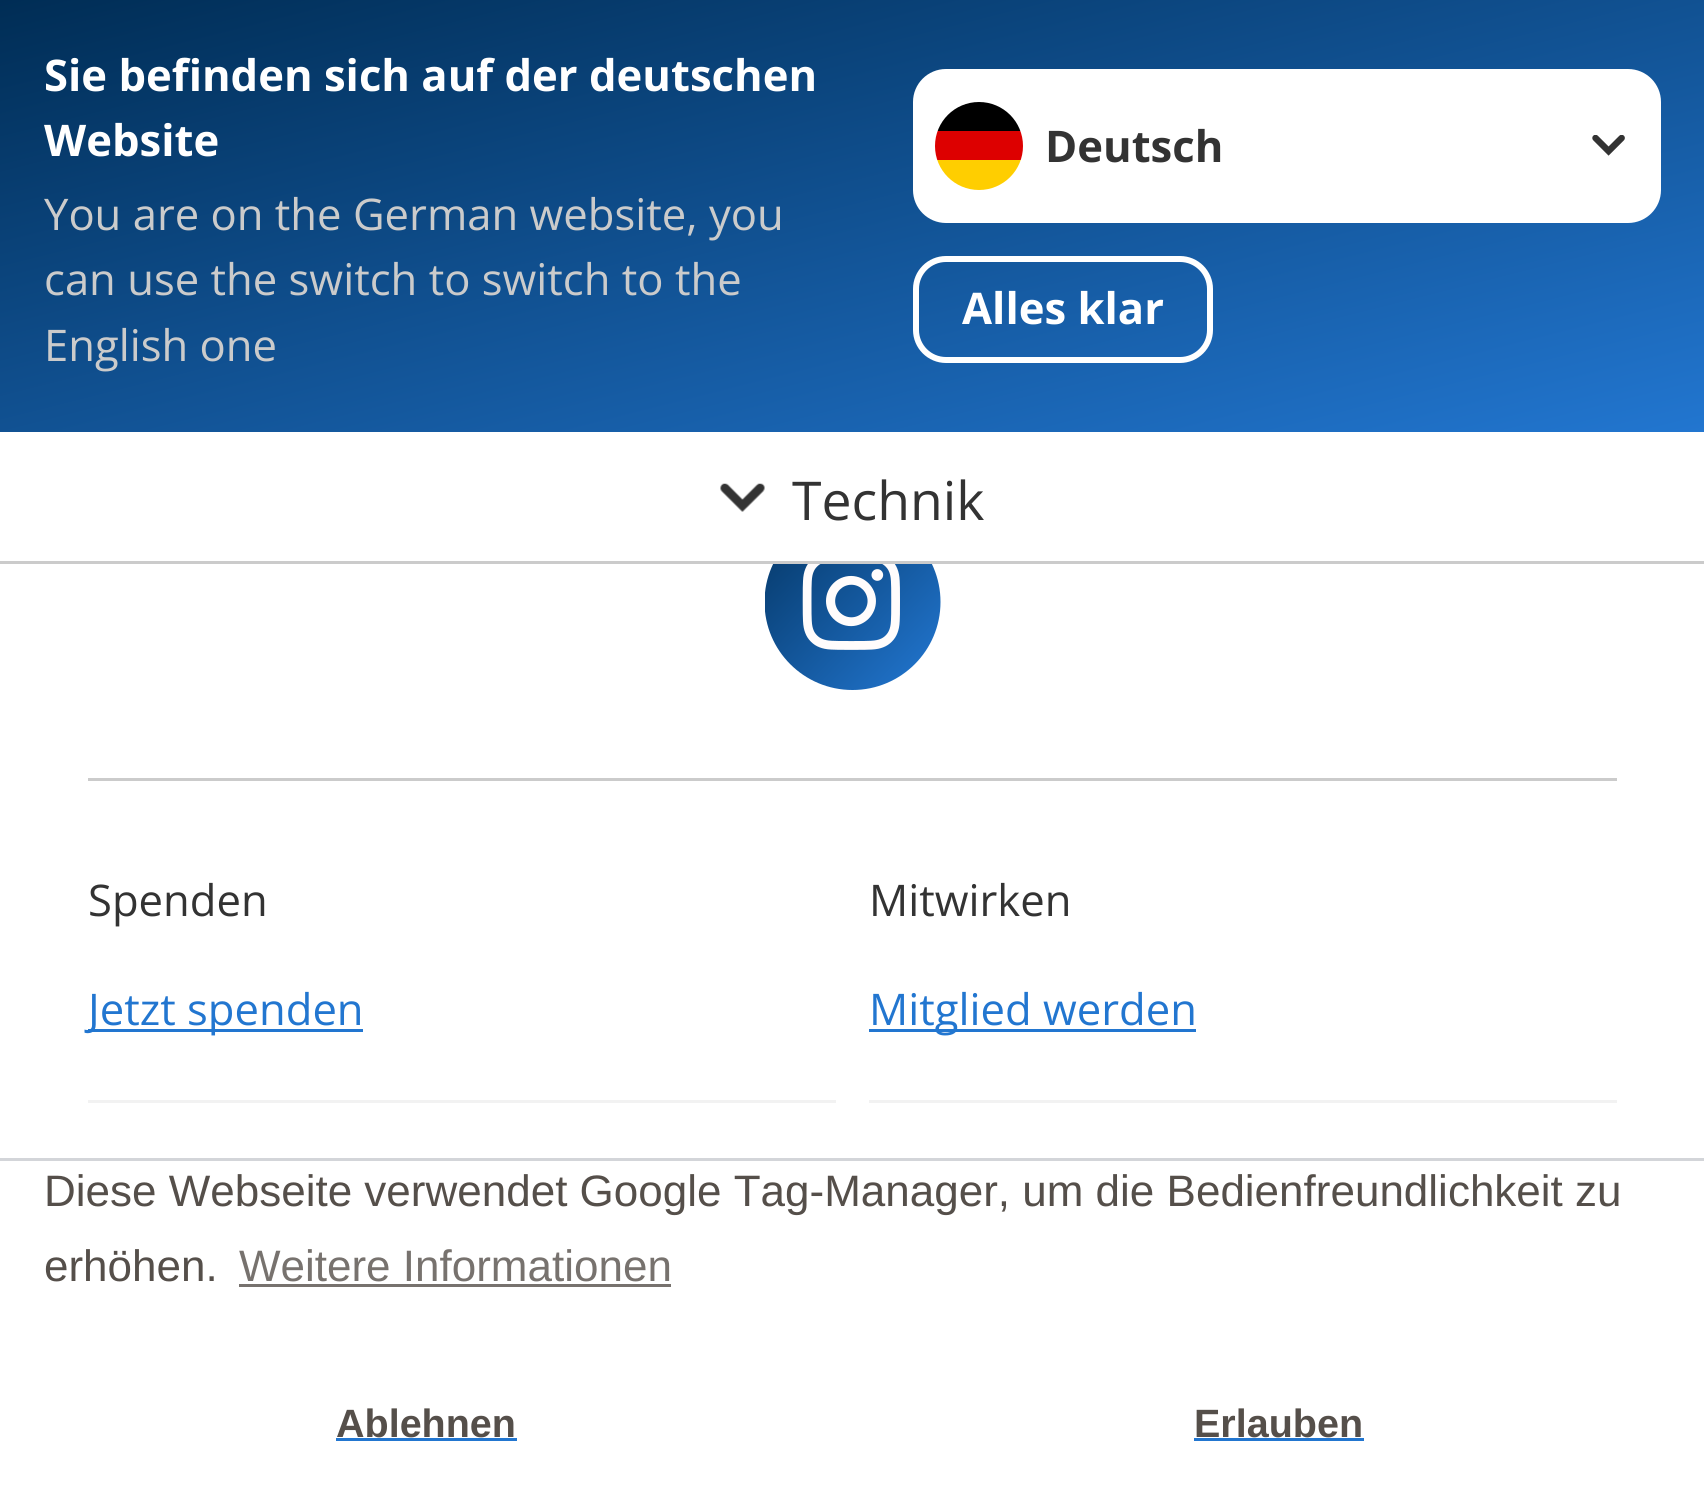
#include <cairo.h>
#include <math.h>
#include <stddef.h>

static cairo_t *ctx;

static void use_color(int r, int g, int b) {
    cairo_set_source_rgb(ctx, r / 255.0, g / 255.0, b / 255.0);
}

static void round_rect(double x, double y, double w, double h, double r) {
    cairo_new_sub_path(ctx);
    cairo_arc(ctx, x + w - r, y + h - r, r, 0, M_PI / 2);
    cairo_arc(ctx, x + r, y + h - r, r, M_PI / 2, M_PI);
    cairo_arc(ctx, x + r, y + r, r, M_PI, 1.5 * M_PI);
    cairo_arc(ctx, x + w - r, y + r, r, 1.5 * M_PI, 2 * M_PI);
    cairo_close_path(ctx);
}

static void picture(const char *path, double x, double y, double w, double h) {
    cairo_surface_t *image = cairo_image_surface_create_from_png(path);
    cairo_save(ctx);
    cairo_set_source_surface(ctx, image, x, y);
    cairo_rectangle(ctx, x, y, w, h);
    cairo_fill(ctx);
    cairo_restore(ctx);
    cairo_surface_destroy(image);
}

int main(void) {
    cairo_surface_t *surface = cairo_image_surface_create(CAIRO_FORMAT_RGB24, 1704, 1491);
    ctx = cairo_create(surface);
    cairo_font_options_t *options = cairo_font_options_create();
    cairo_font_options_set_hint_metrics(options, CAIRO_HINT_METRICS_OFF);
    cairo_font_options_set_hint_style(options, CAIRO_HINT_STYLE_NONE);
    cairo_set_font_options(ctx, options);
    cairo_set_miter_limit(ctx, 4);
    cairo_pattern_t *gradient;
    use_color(255, 255, 255);
    cairo_paint(ctx);
    gradient = cairo_pattern_create_linear(750, -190, 955, 622);
    cairo_pattern_add_color_stop_rgba(gradient, 0, 0, 0.176, 0.333, 1);
    cairo_pattern_add_color_stop_rgba(gradient, 1, 0.133, 0.463, 0.816, 1);
    cairo_set_source(ctx, gradient);
    cairo_pattern_destroy(gradient);
    cairo_rectangle(ctx, 0, 0, 1704, 432);
    cairo_fill(ctx);
    cairo_select_font_face(ctx, "Open Sans", CAIRO_FONT_SLANT_NORMAL, CAIRO_FONT_WEIGHT_BOLD);
    cairo_set_font_size(ctx, 43.6);
    use_color(255, 255, 255);
    cairo_move_to(ctx, 44, 91);
    cairo_show_text(ctx, "Sie befinden sich auf der deutschen");
    cairo_move_to(ctx, 44, 156);
    cairo_show_text(ctx, "Website");
    cairo_select_font_face(ctx, "Open Sans", CAIRO_FONT_SLANT_NORMAL, CAIRO_FONT_WEIGHT_NORMAL);
    use_color(203, 203, 203);
    cairo_move_to(ctx, 44, 230);
    cairo_show_text(ctx, "You are on the German website, you");
    cairo_move_to(ctx, 44, 295);
    cairo_show_text(ctx, "can use the switch to switch to the");
    cairo_move_to(ctx, 44, 361);
    cairo_show_text(ctx, "English one");
    use_color(255, 255, 255);
    round_rect(913, 69, 748, 154, 33);
    cairo_fill(ctx);
    cairo_save(ctx);
    round_rect(935, 102, 88, 88, 44);
    cairo_clip(ctx);
    use_color(255, 206, 0);
    cairo_rectangle(ctx, 937, 160, 84, 30);
    cairo_fill(ctx);
    use_color(0, 0, 0);
    cairo_rectangle(ctx, 937, 102, 84, 29);
    cairo_fill(ctx);
    use_color(221, 0, 0);
    cairo_rectangle(ctx, 935, 131, 88, 29);
    cairo_fill(ctx);
    cairo_restore(ctx);
    picture("img1.png", 1592, 135, 33, 21);
    cairo_select_font_face(ctx, "Open Sans", CAIRO_FONT_SLANT_NORMAL, CAIRO_FONT_WEIGHT_BOLD);
    use_color(51, 51, 51);
    cairo_move_to(ctx, 1045, 162);
    cairo_show_text(ctx, "Deutsch");
    round_rect(916, 259, 294, 101, 30);
    use_color(255, 255, 255);
    cairo_set_line_width(ctx, 6);
    cairo_stroke(ctx);
    cairo_move_to(ctx, 962, 324);
    cairo_show_text(ctx, "Alles klar");
    cairo_save(ctx);
    cairo_rectangle(ctx, 765, 514, 176, 176);
    cairo_clip(ctx);
    gradient = cairo_pattern_create_linear(743, 489, 941, 678);
    cairo_pattern_add_color_stop_rgba(gradient, 0, 0, 0.176, 0.333, 1);
    cairo_pattern_add_color_stop_rgba(gradient, 1, 0.133, 0.463, 0.816, 1);
    cairo_set_source(ctx, gradient);
    cairo_pattern_destroy(gradient);
    cairo_arc(ctx, 852.5, 602, 88, 0, 2 * M_PI);
    cairo_fill(ctx);
    cairo_restore(ctx);
    cairo_rectangle(ctx, 774, 514, 157, 47);
    cairo_fill(ctx);
    use_color(203, 203, 203);
    cairo_rectangle(ctx, 0, 561, 1704, 3);
    cairo_fill(ctx);
    picture("img2.png", 720, 483, 45, 29);
    cairo_select_font_face(ctx, "Open Sans", CAIRO_FONT_SLANT_NORMAL, CAIRO_FONT_WEIGHT_NORMAL);
    cairo_set_font_size(ctx, 53.5);
    use_color(51, 51, 51);
    cairo_move_to(ctx, 792, 520);
    cairo_show_text(ctx, "Technik");
    picture("img3.png", 802, 564, 98, 86);
    use_color(203, 203, 203);
    cairo_rectangle(ctx, 88, 778, 1529, 3);
    cairo_fill(ctx);
    use_color(242, 242, 242);
    cairo_rectangle(ctx, 88, 1100, 748, 3);
    cairo_fill(ctx);
    cairo_set_font_size(ctx, 43.6);
    use_color(51, 51, 51);
    cairo_move_to(ctx, 88, 916);
    cairo_show_text(ctx, "Spenden");
    use_color(34, 118, 208);
    cairo_rectangle(ctx, 88, 1029, 275, 3);
    cairo_fill(ctx);
    cairo_move_to(ctx, 88, 1025);
    cairo_show_text(ctx, "Jetzt spenden");
    use_color(242, 242, 242);
    cairo_rectangle(ctx, 869, 1100, 748, 3);
    cairo_fill(ctx);
    use_color(51, 51, 51);
    cairo_move_to(ctx, 869, 916);
    cairo_show_text(ctx, "Mitwirken");
    use_color(34, 118, 208);
    cairo_rectangle(ctx, 869, 1029, 327, 3);
    cairo_fill(ctx);
    cairo_move_to(ctx, 869, 1025);
    cairo_show_text(ctx, "Mitglied werden");
    use_color(211, 213, 217);
    cairo_rectangle(ctx, 0, 1158, 1704, 3);
    cairo_fill(ctx);
    cairo_select_font_face(ctx, "Liberation Sans", CAIRO_FONT_SLANT_NORMAL, CAIRO_FONT_WEIGHT_NORMAL);
    cairo_set_font_size(ctx, 44);
    use_color(85, 79, 74);
    cairo_move_to(ctx, 44, 1206);
    cairo_show_text(ctx, "Diese Webseite verwendet Google Tag-Manager, um die Bedienfreundlichkeit zu");
    cairo_move_to(ctx, 44, 1281);
    cairo_show_text(ctx, "erhöhen.");
    use_color(119, 114, 110);
    cairo_move_to(ctx, 239, 1281);
    cairo_show_text(ctx, "Weitere Informationen");
    cairo_rectangle(ctx, 239, 1284, 432, 3);
    cairo_fill(ctx);
    cairo_select_font_face(ctx, "Liberation Sans", CAIRO_FONT_SLANT_NORMAL, CAIRO_FONT_WEIGHT_BOLD);
    cairo_set_font_size(ctx, 39.5);
    use_color(85, 79, 74);
    cairo_move_to(ctx, 336, 1437);
    cairo_show_text(ctx, "Ablehnen");
    use_color(34, 118, 208);
    cairo_rectangle(ctx, 336, 1438, 181, 3);
    cairo_fill(ctx);
    use_color(85, 79, 74);
    cairo_move_to(ctx, 1194, 1437);
    cairo_show_text(ctx, "Erlauben");
    use_color(34, 118, 208);
    cairo_rectangle(ctx, 1194, 1438, 170, 3);
    cairo_fill(ctx);
    cairo_surface_write_to_png(surface, "result.png");
    cairo_font_options_destroy(options);
    cairo_destroy(ctx);
    cairo_surface_destroy(surface);
    return 0;
}
